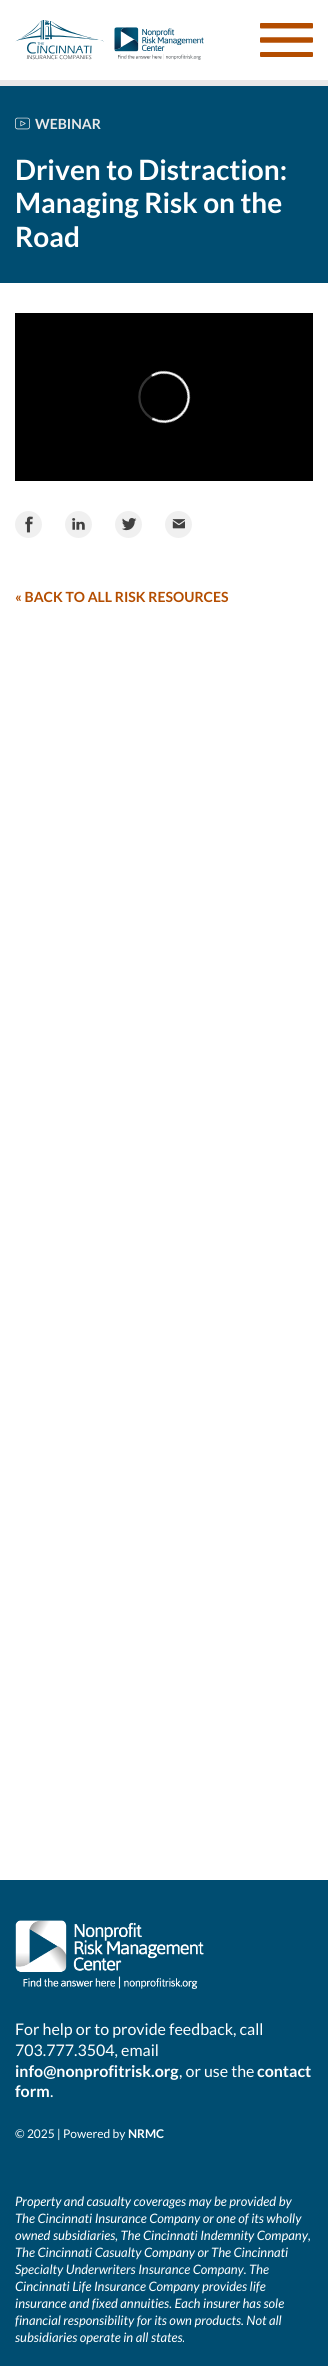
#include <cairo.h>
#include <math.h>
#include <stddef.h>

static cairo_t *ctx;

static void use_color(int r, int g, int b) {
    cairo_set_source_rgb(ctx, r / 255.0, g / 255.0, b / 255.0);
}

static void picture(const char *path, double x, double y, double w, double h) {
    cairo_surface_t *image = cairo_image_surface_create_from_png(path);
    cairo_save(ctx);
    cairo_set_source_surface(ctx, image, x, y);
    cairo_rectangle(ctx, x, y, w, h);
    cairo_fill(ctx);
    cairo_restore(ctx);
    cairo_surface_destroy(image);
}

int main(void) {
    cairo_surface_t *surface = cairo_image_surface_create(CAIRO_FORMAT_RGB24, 328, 2366);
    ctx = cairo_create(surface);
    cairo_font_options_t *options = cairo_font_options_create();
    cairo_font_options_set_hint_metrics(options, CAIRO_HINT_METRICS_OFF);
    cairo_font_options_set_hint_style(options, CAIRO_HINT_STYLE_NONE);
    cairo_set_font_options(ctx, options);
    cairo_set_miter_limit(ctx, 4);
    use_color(255, 255, 255);
    cairo_paint(ctx);
    picture("img1.png", 15, 20, 89, 40);
    picture("img2.png", 114, 27, 90, 33);
    picture("img3.png", 260, 23, 53, 34);
    use_color(233, 233, 233);
    cairo_rectangle(ctx, 0, 80, 328, 6);
    cairo_fill(ctx);
    use_color(0, 77, 113);
    cairo_rectangle(ctx, 0, 86, 328, 197);
    cairo_fill(ctx);
    picture("img4.png", 15, 117, 15, 13);
    cairo_select_font_face(ctx, "Lato", CAIRO_FONT_SLANT_NORMAL, CAIRO_FONT_WEIGHT_BOLD);
    cairo_set_font_size(ctx, 14);
    use_color(233, 233, 233);
    cairo_move_to(ctx, 35, 129);
    cairo_show_text(ctx, "WEBINAR");
    cairo_set_font_size(ctx, 28);
    use_color(255, 255, 255);
    cairo_move_to(ctx, 15, 180);
    cairo_show_text(ctx, "Driven to Distraction:");
    cairo_move_to(ctx, 15, 213);
    cairo_show_text(ctx, "Managing Risk on the");
    cairo_move_to(ctx, 15, 247);
    cairo_show_text(ctx, "Road");
    picture("img5.png", 15, 313, 298, 168);
    picture("img6.png", 15, 511, 27, 27);
    picture("img7.png", 65, 511, 27, 27);
    picture("img8.png", 115, 511, 27, 27);
    picture("img9.png", 165, 511, 27, 27);
    cairo_set_font_size(ctx, 14);
    use_color(180, 77, 0);
    cairo_move_to(ctx, 15, 602);
    cairo_show_text(ctx, "« BACK TO ALL RISK RESOURCES");
    use_color(0, 77, 113);
    cairo_rectangle(ctx, 0, 1880, 328, 486);
    cairo_fill(ctx);
    picture("img10.png", 15, 1920, 189, 69);
    cairo_select_font_face(ctx, "Lato", CAIRO_FONT_SLANT_NORMAL, CAIRO_FONT_WEIGHT_NORMAL);
    cairo_set_font_size(ctx, 16);
    use_color(255, 255, 255);
    cairo_move_to(ctx, 15, 2035);
    cairo_show_text(ctx, "For help or to provide feedback, call");
    cairo_move_to(ctx, 15, 2056);
    cairo_show_text(ctx, "703.777.3504, email");
    cairo_select_font_face(ctx, "Lato", CAIRO_FONT_SLANT_NORMAL, CAIRO_FONT_WEIGHT_BOLD);
    cairo_move_to(ctx, 15, 2077);
    cairo_show_text(ctx, "info@nonprofitrisk.org");
    cairo_select_font_face(ctx, "Lato", CAIRO_FONT_SLANT_NORMAL, CAIRO_FONT_WEIGHT_NORMAL);
    cairo_move_to(ctx, 179, 2077);
    cairo_show_text(ctx, ", or use the");
    cairo_select_font_face(ctx, "Lato", CAIRO_FONT_SLANT_NORMAL, CAIRO_FONT_WEIGHT_BOLD);
    cairo_move_to(ctx, 257, 2077);
    cairo_show_text(ctx, "contact");
    cairo_move_to(ctx, 15, 2097);
    cairo_show_text(ctx, "form");
    cairo_select_font_face(ctx, "Lato", CAIRO_FONT_SLANT_NORMAL, CAIRO_FONT_WEIGHT_NORMAL);
    cairo_move_to(ctx, 50, 2097);
    cairo_show_text(ctx, ".");
    cairo_set_font_size(ctx, 12);
    cairo_move_to(ctx, 15, 2138);
    cairo_show_text(ctx, "© 2025 | Powered by");
    cairo_select_font_face(ctx, "Lato", CAIRO_FONT_SLANT_NORMAL, CAIRO_FONT_WEIGHT_BOLD);
    cairo_move_to(ctx, 128, 2138);
    cairo_show_text(ctx, "NRMC");
    cairo_select_font_face(ctx, "Lato", CAIRO_FONT_SLANT_ITALIC, CAIRO_FONT_WEIGHT_NORMAL);
    cairo_set_font_size(ctx, 13);
    cairo_move_to(ctx, 15, 2206);
    cairo_show_text(ctx, "Property and casualty coverages may be provided by");
    cairo_move_to(ctx, 15, 2223);
    cairo_show_text(ctx, "The Cincinnati Insurance Company or one of its wholly");
    cairo_move_to(ctx, 15, 2240);
    cairo_show_text(ctx, "owned subsidiaries, The Cincinnati Indemnity Company,");
    cairo_move_to(ctx, 15, 2257);
    cairo_show_text(ctx, "The Cincinnati Casualty Company or The Cincinnati");
    cairo_move_to(ctx, 15, 2274);
    cairo_show_text(ctx, "Specialty Underwriters Insurance Company. The");
    cairo_move_to(ctx, 15, 2291);
    cairo_show_text(ctx, "Cincinnati Life Insurance Company provides life");
    cairo_move_to(ctx, 15, 2308);
    cairo_show_text(ctx, "insurance and fixed annuities. Each insurer has sole");
    cairo_move_to(ctx, 15, 2325);
    cairo_show_text(ctx, "financial responsibility for its own products. Not all");
    cairo_move_to(ctx, 15, 2342);
    cairo_show_text(ctx, "subsidiaries operate in all states.");
    cairo_surface_write_to_png(surface, "result.png");
    cairo_font_options_destroy(options);
    cairo_destroy(ctx);
    cairo_surface_destroy(surface);
    return 0;
}
